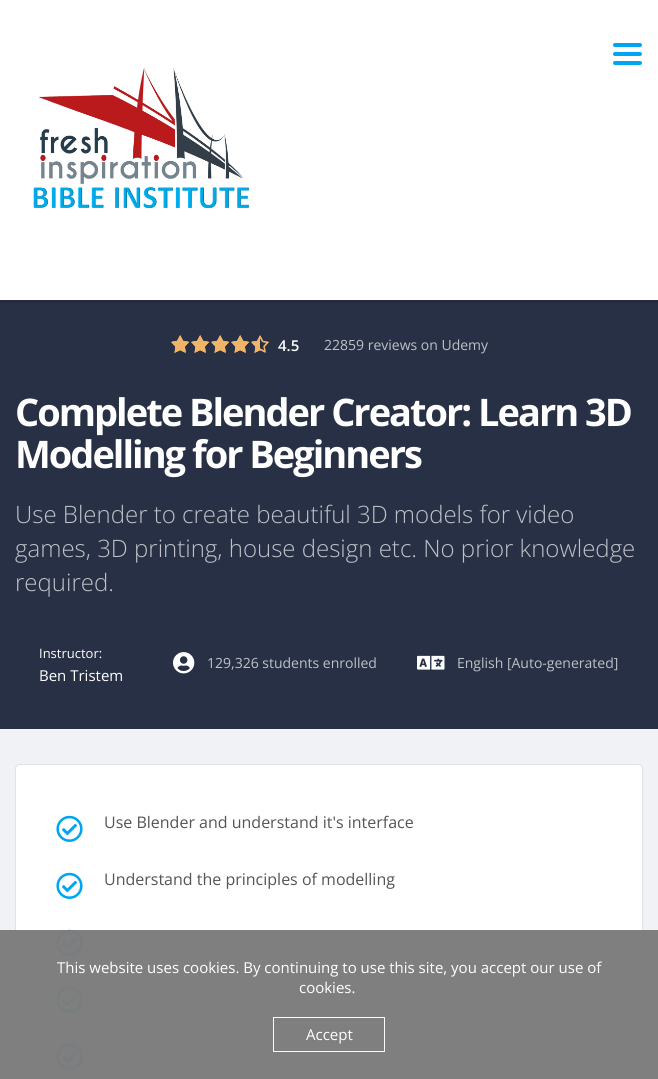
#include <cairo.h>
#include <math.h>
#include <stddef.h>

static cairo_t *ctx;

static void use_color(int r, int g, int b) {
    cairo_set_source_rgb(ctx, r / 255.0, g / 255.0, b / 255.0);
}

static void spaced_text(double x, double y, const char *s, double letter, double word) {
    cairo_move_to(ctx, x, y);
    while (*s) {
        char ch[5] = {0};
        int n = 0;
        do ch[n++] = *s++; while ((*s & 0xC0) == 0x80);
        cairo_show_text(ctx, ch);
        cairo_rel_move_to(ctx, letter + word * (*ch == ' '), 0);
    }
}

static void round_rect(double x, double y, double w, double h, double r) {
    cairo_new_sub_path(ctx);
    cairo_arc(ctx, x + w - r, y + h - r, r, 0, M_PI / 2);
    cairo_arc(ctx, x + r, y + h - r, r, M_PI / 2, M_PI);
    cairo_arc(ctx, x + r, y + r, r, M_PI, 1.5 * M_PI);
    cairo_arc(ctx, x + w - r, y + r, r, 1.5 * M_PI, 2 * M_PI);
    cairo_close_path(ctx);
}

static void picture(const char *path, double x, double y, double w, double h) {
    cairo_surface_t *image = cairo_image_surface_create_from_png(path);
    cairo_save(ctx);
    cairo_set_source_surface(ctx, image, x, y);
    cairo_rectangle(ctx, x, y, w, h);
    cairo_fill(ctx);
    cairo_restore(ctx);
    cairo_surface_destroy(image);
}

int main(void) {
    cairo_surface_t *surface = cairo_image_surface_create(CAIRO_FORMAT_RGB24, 658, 1079);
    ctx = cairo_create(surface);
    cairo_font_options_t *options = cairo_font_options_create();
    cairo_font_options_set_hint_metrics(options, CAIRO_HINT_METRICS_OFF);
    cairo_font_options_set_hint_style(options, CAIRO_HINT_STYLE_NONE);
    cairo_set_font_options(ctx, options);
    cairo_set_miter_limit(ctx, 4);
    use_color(255, 255, 255);
    cairo_paint(ctx);
    use_color(0, 165, 242);
    round_rect(613, 43, 29, 4, 2);
    cairo_fill(ctx);
    round_rect(613, 52, 29, 4, 2);
    cairo_fill(ctx);
    round_rect(613, 61, 29, 4, 2);
    cairo_fill(ctx);
    picture("img1.png", 33, 68, 216, 141);
    use_color(35, 43, 61);
    cairo_rectangle(ctx, 0, 300, 658, 3);
    cairo_fill(ctx);
    use_color(240, 242, 245);
    cairo_rectangle(ctx, 0, 729, 658, 350);
    cairo_fill(ctx);
    use_color(39, 48, 68);
    cairo_rectangle(ctx, 0, 303, 658, 426);
    cairo_fill(ctx);
    picture("img2.png", 171, 335, 98, 18);
    picture("img3.png", 171, 335, 89, 18);
    cairo_select_font_face(ctx, "Open Sans SemiBold", CAIRO_FONT_SLANT_NORMAL, CAIRO_FONT_WEIGHT_NORMAL);
    cairo_set_font_size(ctx, 15);
    use_color(255, 255, 255);
    cairo_move_to(ctx, 278, 351);
    cairo_show_text(ctx, "4.5");
    cairo_select_font_face(ctx, "Open Sans", CAIRO_FONT_SLANT_NORMAL, CAIRO_FONT_WEIGHT_NORMAL);
    cairo_set_font_size(ctx, 14);
    use_color(190, 193, 199);
    cairo_move_to(ctx, 324, 350);
    cairo_show_text(ctx, "22859 reviews on Udemy");
    cairo_select_font_face(ctx, "Open Sans", CAIRO_FONT_SLANT_NORMAL, CAIRO_FONT_WEIGHT_BOLD);
    cairo_set_font_size(ctx, 38);
    use_color(255, 255, 255);
    spaced_text(15, 426, "Complete Blender Creator: Learn 3D", -2, 0);
    spaced_text(15, 468, "Modelling for Beginners", -2, 0);
    cairo_select_font_face(ctx, "Open Sans Light", CAIRO_FONT_SLANT_NORMAL, CAIRO_FONT_WEIGHT_NORMAL);
    cairo_set_font_size(ctx, 24);
    use_color(190, 193, 199);
    cairo_move_to(ctx, 15, 523);
    cairo_show_text(ctx, "Use Blender to create beautiful 3D models for video");
    cairo_move_to(ctx, 15, 557);
    cairo_show_text(ctx, "games, 3D printing, house design etc. No prior knowledge");
    cairo_move_to(ctx, 15, 591);
    cairo_show_text(ctx, "required.");
    cairo_select_font_face(ctx, "Open Sans", CAIRO_FONT_SLANT_NORMAL, CAIRO_FONT_WEIGHT_NORMAL);
    cairo_set_font_size(ctx, 13);
    use_color(255, 255, 255);
    cairo_move_to(ctx, 39, 658);
    cairo_show_text(ctx, "Instructor:");
    cairo_set_font_size(ctx, 15);
    cairo_move_to(ctx, 39, 681);
    cairo_show_text(ctx, "Ben Tristem");
    picture("img4.png", 173, 652, 22, 22);
    cairo_set_font_size(ctx, 14);
    use_color(190, 193, 199);
    cairo_move_to(ctx, 207, 668);
    cairo_show_text(ctx, "129,326 students enrolled");
    picture("img5.png", 417, 655, 28, 15);
    cairo_move_to(ctx, 457, 668);
    cairo_show_text(ctx, "English [Auto-generated]");
    use_color(255, 255, 255);
    round_rect(15.5, 764.5, 627, 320, 4.5);
    cairo_fill_preserve(ctx);
    use_color(225, 226, 228);
    cairo_set_line_width(ctx, 1);
    cairo_stroke(ctx);
    picture("img6.png", 56, 815, 27, 27);
    cairo_set_font_size(ctx, 16);
    use_color(85, 85, 85);
    cairo_move_to(ctx, 104, 828);
    cairo_show_text(ctx, "Use Blender and understand it's interface");
    picture("img6.png", 56, 872, 27, 27);
    cairo_move_to(ctx, 104, 885);
    cairo_show_text(ctx, "Understand the principles of modelling");
    picture("img6.png", 56, 929, 27, 27);
    picture("img6.png", 56, 986, 27, 27);
    picture("img6.png", 56, 1043, 27, 27);
    cairo_set_source_rgba(ctx, 0.486, 0.486, 0.486, 0.97);
    cairo_rectangle(ctx, 0, 930, 658, 149);
    cairo_fill(ctx);
    cairo_set_font_size(ctx, 15);
    use_color(255, 255, 255);
    cairo_move_to(ctx, 57, 973);
    cairo_show_text(ctx, "This website uses cookies. By continuing to use this site, you accept our use of");
    cairo_move_to(ctx, 299, 993);
    cairo_show_text(ctx, "cookies.");
    cairo_rectangle(ctx, 273.5, 1017.5, 111, 34);
    cairo_set_source_rgba(ctx, 1, 1, 1, 0.97);
    cairo_stroke(ctx);
    use_color(255, 255, 255);
    cairo_move_to(ctx, 306, 1040);
    cairo_show_text(ctx, "Accept");
    cairo_surface_write_to_png(surface, "result.png");
    cairo_font_options_destroy(options);
    cairo_destroy(ctx);
    cairo_surface_destroy(surface);
    return 0;
}
